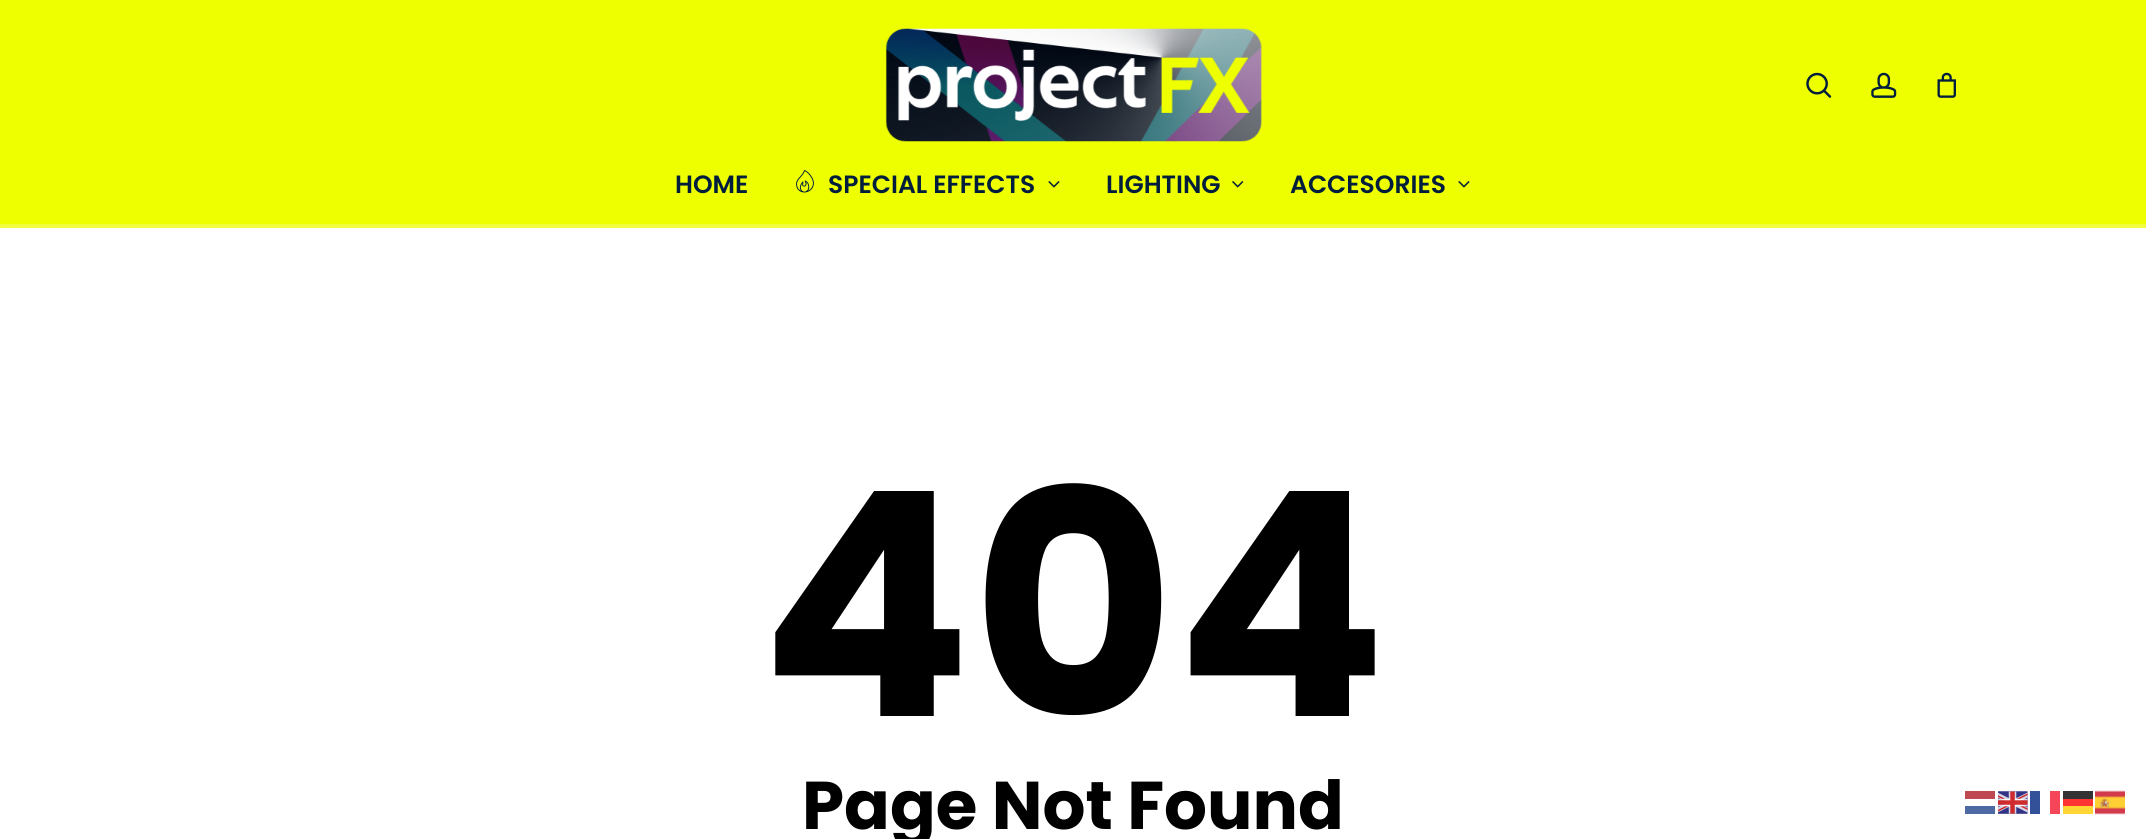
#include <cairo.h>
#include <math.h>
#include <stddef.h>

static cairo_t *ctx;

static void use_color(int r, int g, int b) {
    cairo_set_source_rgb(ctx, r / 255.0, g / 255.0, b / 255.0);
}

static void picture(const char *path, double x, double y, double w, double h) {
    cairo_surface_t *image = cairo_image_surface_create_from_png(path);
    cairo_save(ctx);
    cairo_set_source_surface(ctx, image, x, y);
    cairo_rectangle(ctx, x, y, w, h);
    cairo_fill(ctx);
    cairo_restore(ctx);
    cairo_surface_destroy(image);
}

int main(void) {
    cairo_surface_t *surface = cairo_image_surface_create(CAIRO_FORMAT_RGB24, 2146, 839);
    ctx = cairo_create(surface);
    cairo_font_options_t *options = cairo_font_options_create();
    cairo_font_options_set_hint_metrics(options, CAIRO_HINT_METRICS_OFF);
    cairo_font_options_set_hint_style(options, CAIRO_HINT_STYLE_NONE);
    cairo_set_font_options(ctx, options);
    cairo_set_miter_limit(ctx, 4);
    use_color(255, 255, 255);
    cairo_paint(ctx);
    use_color(242, 255, 64);
    cairo_rectangle(ctx, 0, 224, 2146, 4);
    cairo_fill(ctx);
    use_color(238, 255, 0);
    cairo_rectangle(ctx, 0, 0, 2146, 224);
    cairo_fill(ctx);
    picture("img1.png", 885, 28, 377, 114);
    picture("img2.png", 1806, 72, 26, 26);
    picture("img3.png", 1871, 72, 26, 26);
    picture("img4.png", 1937, 72, 19, 26);
    cairo_select_font_face(ctx, "Poppins SemiBold", CAIRO_FONT_SLANT_NORMAL, CAIRO_FONT_WEIGHT_NORMAL);
    cairo_set_font_size(ctx, 25);
    use_color(0, 29, 61);
    cairo_move_to(ctx, 675, 193);
    cairo_show_text(ctx, "HOME");
    picture("img5.png", 796, 170, 18, 23);
    cairo_move_to(ctx, 828, 193);
    cairo_show_text(ctx, "SPECIAL EFFECTS");
    picture("img6.png", 1048, 181, 12, 7);
    cairo_move_to(ctx, 1106, 193);
    cairo_show_text(ctx, "LIGHTING");
    picture("img7.png", 1232, 181, 12, 7);
    cairo_move_to(ctx, 1290, 193);
    cairo_show_text(ctx, "ACCESORIES");
    picture("img6.png", 1458, 181, 12, 7);
    cairo_select_font_face(ctx, "Poppins", CAIRO_FONT_SLANT_NORMAL, CAIRO_FONT_WEIGHT_BOLD);
    cairo_set_font_size(ctx, 312.5);
    use_color(0, 0, 0);
    cairo_move_to(ctx, 760, 716);
    cairo_show_text(ctx, "404");
    cairo_set_font_size(ctx, 67.5);
    cairo_move_to(ctx, 802, 829);
    cairo_show_text(ctx, "Page Not Found");
    use_color(190, 73, 83);
    cairo_rectangle(ctx, 1965, 791, 30, 8);
    cairo_fill(ctx);
    picture("img8.png", 1998, 791, 30, 23);
    use_color(51, 81, 153);
    cairo_rectangle(ctx, 2030, 791, 10, 23);
    cairo_fill(ctx);
    use_color(245, 70, 89);
    cairo_rectangle(ctx, 2050, 791, 10, 23);
    cairo_fill(ctx);
    use_color(51, 51, 51);
    cairo_rectangle(ctx, 2063, 791, 30, 8);
    cairo_fill(ctx);
    picture("img9.png", 2095, 790, 30, 25);
    use_color(255, 51, 51);
    cairo_rectangle(ctx, 2063, 799, 30, 7);
    cairo_fill(ctx);
    use_color(77, 107, 162);
    cairo_rectangle(ctx, 1965, 806, 30, 8);
    cairo_fill(ctx);
    use_color(255, 214, 51);
    cairo_rectangle(ctx, 2063, 806, 30, 8);
    cairo_fill(ctx);
    cairo_surface_write_to_png(surface, "result.png");
    cairo_font_options_destroy(options);
    cairo_destroy(ctx);
    cairo_surface_destroy(surface);
    return 0;
}
